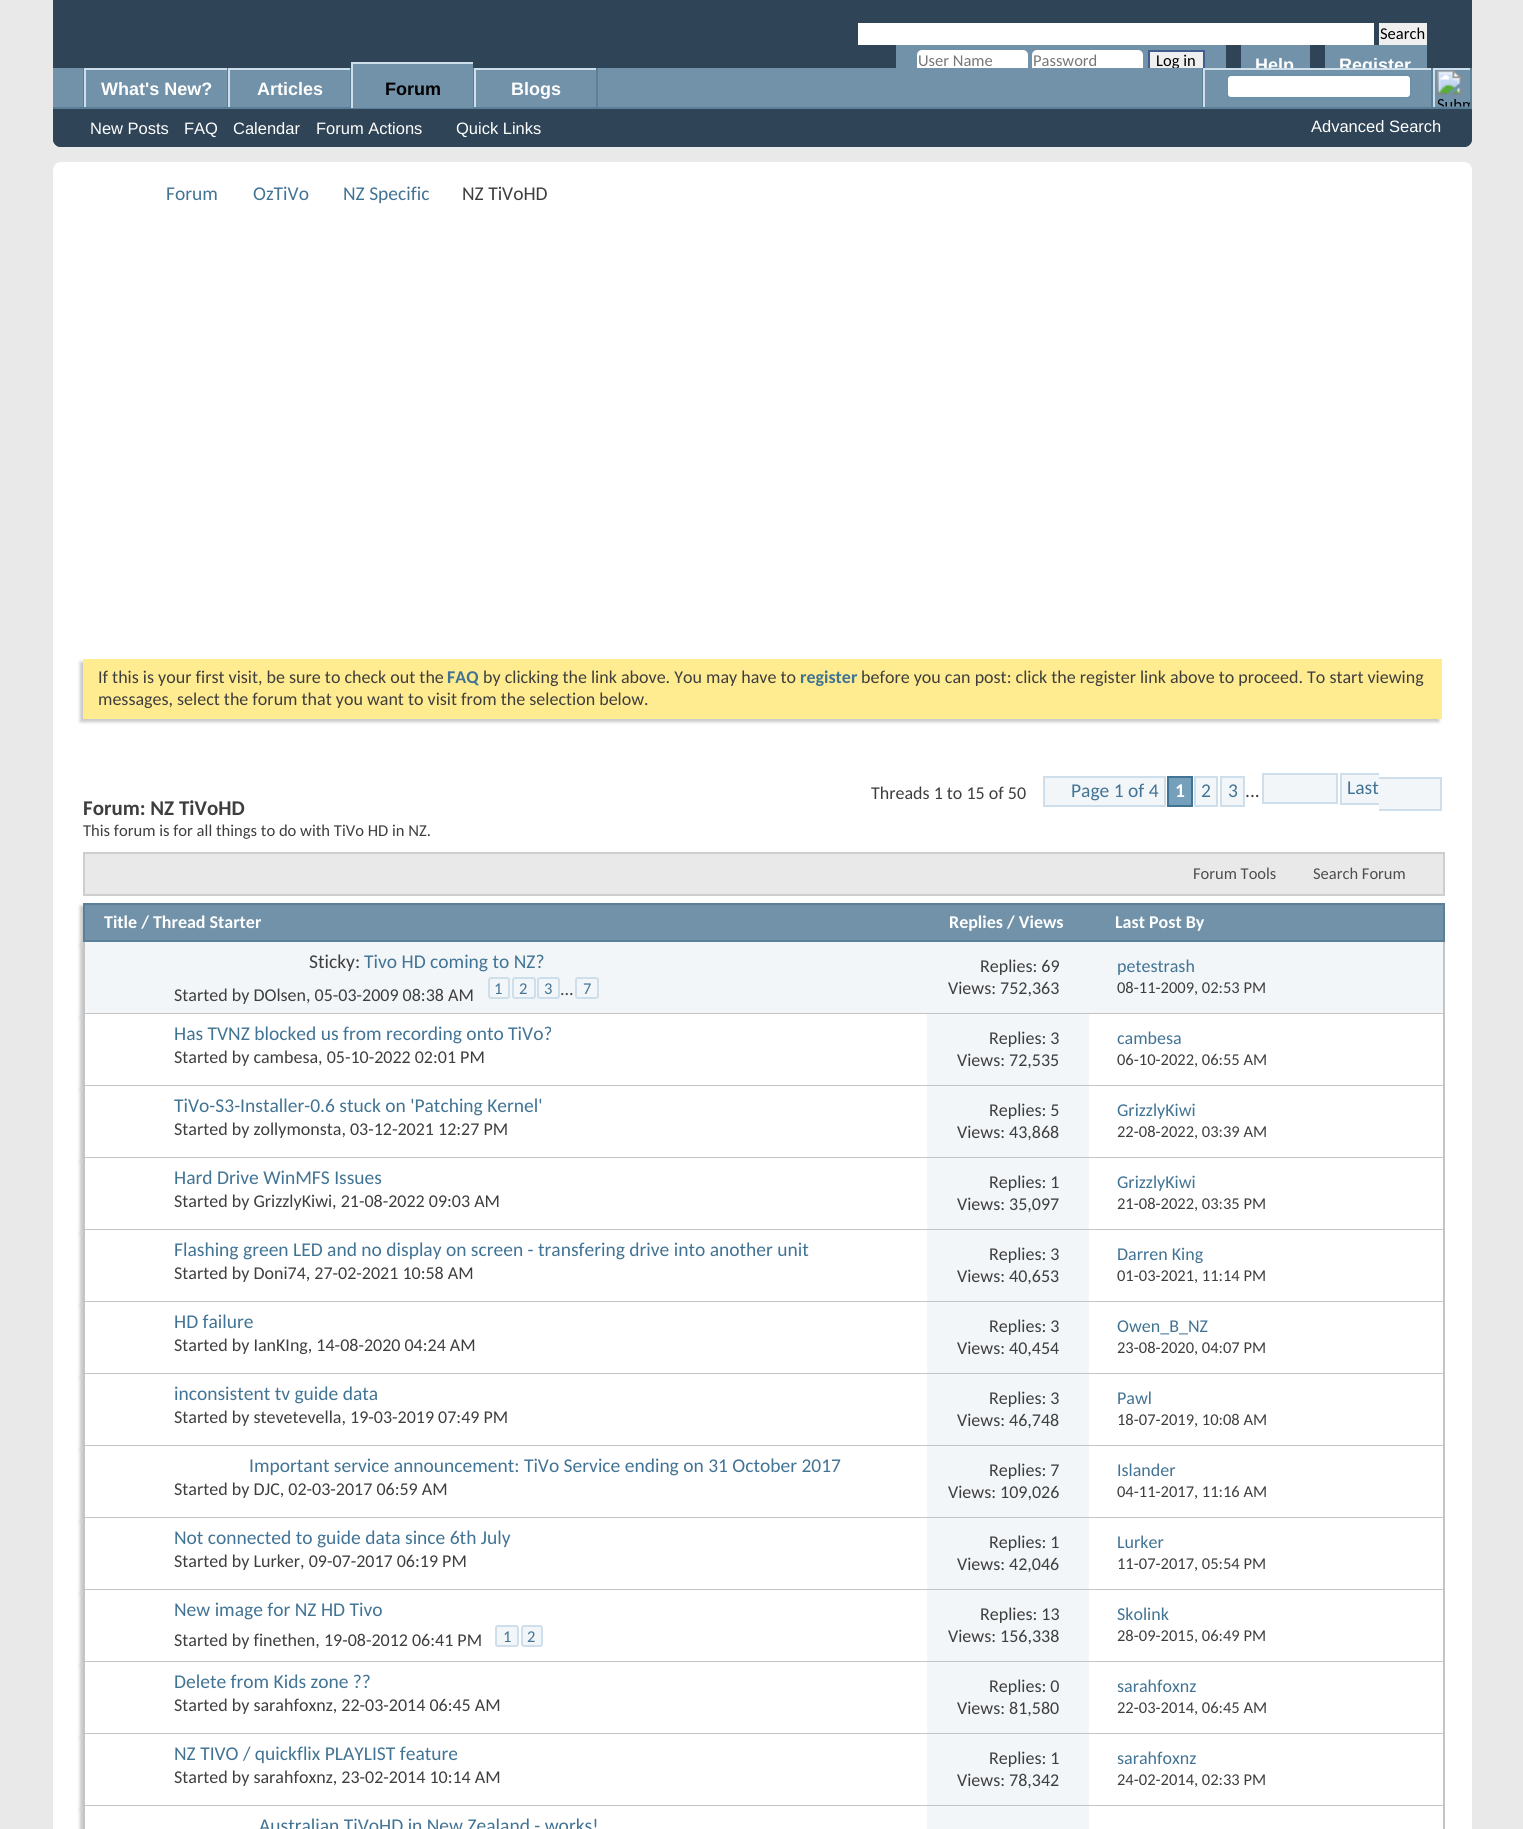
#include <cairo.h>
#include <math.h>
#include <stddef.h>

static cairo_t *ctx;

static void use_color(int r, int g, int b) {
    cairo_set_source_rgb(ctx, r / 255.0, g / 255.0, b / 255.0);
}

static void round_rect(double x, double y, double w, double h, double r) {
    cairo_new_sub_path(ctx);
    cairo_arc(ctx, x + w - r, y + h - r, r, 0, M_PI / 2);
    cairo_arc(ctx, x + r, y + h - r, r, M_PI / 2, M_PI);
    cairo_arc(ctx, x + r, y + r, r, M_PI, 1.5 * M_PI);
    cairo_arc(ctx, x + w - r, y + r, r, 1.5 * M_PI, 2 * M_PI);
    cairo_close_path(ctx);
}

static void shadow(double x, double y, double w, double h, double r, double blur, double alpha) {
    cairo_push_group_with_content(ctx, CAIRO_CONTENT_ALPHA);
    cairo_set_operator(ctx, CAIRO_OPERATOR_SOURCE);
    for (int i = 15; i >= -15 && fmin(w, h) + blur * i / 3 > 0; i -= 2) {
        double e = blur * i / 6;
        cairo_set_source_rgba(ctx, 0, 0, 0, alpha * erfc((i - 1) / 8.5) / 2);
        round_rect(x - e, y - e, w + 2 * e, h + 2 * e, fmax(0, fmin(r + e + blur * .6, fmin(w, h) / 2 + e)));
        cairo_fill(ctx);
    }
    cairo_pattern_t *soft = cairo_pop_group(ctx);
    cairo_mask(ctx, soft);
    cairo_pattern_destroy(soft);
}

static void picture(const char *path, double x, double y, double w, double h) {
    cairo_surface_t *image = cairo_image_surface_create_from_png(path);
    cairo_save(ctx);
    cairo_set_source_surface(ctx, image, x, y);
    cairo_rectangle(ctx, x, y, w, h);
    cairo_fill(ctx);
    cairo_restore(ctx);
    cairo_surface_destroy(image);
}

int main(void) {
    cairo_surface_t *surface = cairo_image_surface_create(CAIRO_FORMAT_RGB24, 1523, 1829);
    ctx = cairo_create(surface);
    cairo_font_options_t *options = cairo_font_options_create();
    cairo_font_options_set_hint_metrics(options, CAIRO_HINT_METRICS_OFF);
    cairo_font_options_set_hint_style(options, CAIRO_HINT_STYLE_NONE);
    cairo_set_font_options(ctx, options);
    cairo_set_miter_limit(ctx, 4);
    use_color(233, 233, 233);
    cairo_paint(ctx);
    use_color(47, 68, 86);
    cairo_new_path(ctx);
    cairo_move_to(ctx, 53, 0);
    cairo_line_to(ctx, 1472, 0);
    cairo_line_to(ctx, 1472, 139);
    cairo_curve_to(ctx, 1472, 143.5, 1468.5, 147, 1464, 147);
    cairo_line_to(ctx, 61, 147);
    cairo_curve_to(ctx, 56.5, 147, 53, 143.5, 53, 139);
    cairo_close_path(ctx);
    cairo_fill(ctx);
    use_color(255, 255, 255);
    cairo_rectangle(ctx, 858, 23, 516, 22);
    cairo_fill(ctx);
    use_color(239, 239, 239);
    cairo_rectangle(ctx, 1379, 23, 48, 22);
    cairo_fill(ctx);
    cairo_select_font_face(ctx, "Carlito", CAIRO_FONT_SLANT_NORMAL, CAIRO_FONT_WEIGHT_NORMAL);
    cairo_set_font_size(ctx, 16.5);
    use_color(0, 0, 0);
    cairo_move_to(ctx, 1380, 39);
    cairo_show_text(ctx, "Search");
    use_color(113, 146, 168);
    cairo_rectangle(ctx, 896, 45, 330, 23);
    cairo_fill(ctx);
    use_color(255, 255, 255);
    round_rect(917, 50, 111, 22, 5);
    cairo_fill(ctx);
    use_color(119, 119, 119);
    cairo_move_to(ctx, 918, 66);
    cairo_show_text(ctx, "User Name");
    use_color(255, 255, 255);
    round_rect(1032, 50, 111, 22, 5);
    cairo_fill(ctx);
    use_color(119, 119, 119);
    cairo_move_to(ctx, 1033, 66);
    cairo_show_text(ctx, "Password");
    use_color(239, 239, 239);
    cairo_rectangle(ctx, 1150, 52, 53, 16);
    cairo_fill(ctx);
    cairo_rectangle(ctx, 1149, 51, 55, 20);
    use_color(65, 93, 141);
    cairo_stroke(ctx);
    use_color(0, 0, 0);
    cairo_move_to(ctx, 1156, 66);
    cairo_show_text(ctx, "Log in");
    use_color(113, 146, 168);
    cairo_rectangle(ctx, 1241, 45, 69, 23);
    cairo_fill(ctx);
    cairo_select_font_face(ctx, "Liberation Sans", CAIRO_FONT_SLANT_NORMAL, CAIRO_FONT_WEIGHT_BOLD);
    cairo_set_font_size(ctx, 18);
    use_color(255, 255, 255);
    cairo_move_to(ctx, 1255, 71);
    cairo_show_text(ctx, "Help");
    use_color(113, 146, 168);
    cairo_rectangle(ctx, 1325, 45, 102, 23);
    cairo_fill(ctx);
    use_color(255, 255, 255);
    cairo_move_to(ctx, 1339, 71);
    cairo_show_text(ctx, "Register");
    use_color(47, 68, 86);
    cairo_new_path(ctx);
    cairo_move_to(ctx, 53, 68);
    cairo_line_to(ctx, 1472, 68);
    cairo_line_to(ctx, 1472, 139);
    cairo_curve_to(ctx, 1472, 143.5, 1468.5, 147, 1464, 147);
    cairo_line_to(ctx, 61, 147);
    cairo_curve_to(ctx, 56.5, 147, 53, 143.5, 53, 139);
    cairo_close_path(ctx);
    cairo_fill(ctx);
    use_color(113, 146, 168);
    cairo_rectangle(ctx, 53, 68, 1417, 39);
    cairo_fill(ctx);
    use_color(90, 127, 151);
    cairo_rectangle(ctx, 227, 68, 1, 40);
    cairo_fill(ctx);
    cairo_rectangle(ctx, 83, 68, 1, 40);
    cairo_fill(ctx);
    use_color(206, 223, 235);
    cairo_rectangle(ctx, 84, 68, 143, 2);
    cairo_fill(ctx);
    cairo_rectangle(ctx, 84, 68, 2, 40);
    cairo_fill(ctx);
    use_color(255, 255, 255);
    cairo_move_to(ctx, 101, 95);
    cairo_show_text(ctx, "What's New?");
    use_color(90, 127, 151);
    cairo_rectangle(ctx, 350, 68, 1, 40);
    cairo_fill(ctx);
    use_color(206, 223, 235);
    cairo_rectangle(ctx, 228, 68, 122, 2);
    cairo_fill(ctx);
    cairo_rectangle(ctx, 228, 68, 2, 40);
    cairo_fill(ctx);
    use_color(255, 255, 255);
    cairo_move_to(ctx, 257, 95);
    cairo_show_text(ctx, "Articles");
    use_color(90, 127, 151);
    cairo_rectangle(ctx, 473, 68, 1, 39);
    cairo_fill(ctx);
    cairo_rectangle(ctx, 596, 68, 2, 40);
    cairo_fill(ctx);
    use_color(206, 223, 235);
    cairo_rectangle(ctx, 474, 68, 122, 2);
    cairo_fill(ctx);
    cairo_rectangle(ctx, 474, 68, 2, 40);
    cairo_fill(ctx);
    use_color(90, 127, 151);
    cairo_rectangle(ctx, 53, 107, 1419, 2);
    cairo_fill(ctx);
    use_color(113, 146, 168);
    cairo_rectangle(ctx, 353, 64, 120, 44);
    cairo_fill(ctx);
    use_color(206, 223, 235);
    cairo_rectangle(ctx, 351, 62, 122, 2);
    cairo_fill(ctx);
    cairo_rectangle(ctx, 351, 62, 2, 46);
    cairo_fill(ctx);
    use_color(0, 0, 0);
    cairo_move_to(ctx, 385, 95);
    cairo_show_text(ctx, "Forum");
    use_color(255, 255, 255);
    cairo_move_to(ctx, 511, 95);
    cairo_show_text(ctx, "Blogs");
    cairo_select_font_face(ctx, "Liberation Sans", CAIRO_FONT_SLANT_NORMAL, CAIRO_FONT_WEIGHT_NORMAL);
    cairo_set_font_size(ctx, 16.5);
    cairo_move_to(ctx, 90, 134);
    cairo_show_text(ctx, "New Posts");
    cairo_move_to(ctx, 184, 134);
    cairo_show_text(ctx, "FAQ");
    cairo_move_to(ctx, 233, 134);
    cairo_show_text(ctx, "Calendar");
    cairo_move_to(ctx, 316, 134);
    cairo_show_text(ctx, "Forum Actions");
    cairo_move_to(ctx, 456, 134);
    cairo_show_text(ctx, "Quick Links");
    use_color(90, 127, 151);
    cairo_rectangle(ctx, 1202, 68, 1, 39);
    cairo_fill(ctx);
    use_color(206, 223, 235);
    cairo_rectangle(ctx, 1203, 68, 228, 2);
    cairo_fill(ctx);
    cairo_rectangle(ctx, 1203, 68, 2, 39);
    cairo_fill(ctx);
    use_color(255, 255, 255);
    round_rect(1227, 75, 184, 23, 4);
    cairo_fill_preserve(ctx);
    use_color(107, 145, 171);
    cairo_stroke(ctx);
    use_color(90, 127, 151);
    cairo_rectangle(ctx, 1470, 68, 2, 39);
    cairo_fill(ctx);
    cairo_rectangle(ctx, 1431, 68, 2, 39);
    cairo_fill(ctx);
    use_color(206, 223, 235);
    cairo_rectangle(ctx, 1433, 68, 37, 2);
    cairo_fill(ctx);
    cairo_rectangle(ctx, 1433, 68, 2, 39);
    cairo_fill(ctx);
    picture("img1.png", 1437, 70, 33, 37);
    use_color(255, 255, 255);
    cairo_move_to(ctx, 1311, 132);
    cairo_show_text(ctx, "Advanced Search");
    round_rect(53, 162, 1419, 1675, 8);
    cairo_fill(ctx);
    cairo_select_font_face(ctx, "Carlito", CAIRO_FONT_SLANT_NORMAL, CAIRO_FONT_WEIGHT_NORMAL);
    cairo_set_font_size(ctx, 19.5);
    use_color(65, 115, 148);
    cairo_move_to(ctx, 166, 200);
    cairo_show_text(ctx, "Forum");
    cairo_move_to(ctx, 253, 200);
    cairo_show_text(ctx, "OzTiVo");
    cairo_move_to(ctx, 343, 200);
    cairo_show_text(ctx, "NZ Specific");
    use_color(62, 62, 62);
    cairo_move_to(ctx, 462, 200);
    cairo_show_text(ctx, "NZ TiVoHD");
    use_color(200, 200, 200);
    shadow(80, 662, 1359, 60, 0, 1.5, 1);
    use_color(255, 235, 144);
    cairo_rectangle(ctx, 83, 659, 1359, 60);
    cairo_fill(ctx);
    cairo_set_font_size(ctx, 18);
    use_color(62, 62, 62);
    cairo_move_to(ctx, 98, 683);
    cairo_show_text(ctx, "If this is your first visit, be sure to check out the");
    cairo_select_font_face(ctx, "Carlito", CAIRO_FONT_SLANT_NORMAL, CAIRO_FONT_WEIGHT_BOLD);
    use_color(65, 115, 148);
    cairo_move_to(ctx, 447, 683);
    cairo_show_text(ctx, "FAQ");
    cairo_select_font_face(ctx, "Carlito", CAIRO_FONT_SLANT_NORMAL, CAIRO_FONT_WEIGHT_NORMAL);
    use_color(62, 62, 62);
    cairo_move_to(ctx, 483, 683);
    cairo_show_text(ctx, "by clicking the link above. You may have to");
    cairo_select_font_face(ctx, "Carlito", CAIRO_FONT_SLANT_NORMAL, CAIRO_FONT_WEIGHT_BOLD);
    use_color(65, 115, 148);
    cairo_move_to(ctx, 800, 683);
    cairo_show_text(ctx, "register");
    cairo_select_font_face(ctx, "Carlito", CAIRO_FONT_SLANT_NORMAL, CAIRO_FONT_WEIGHT_NORMAL);
    use_color(62, 62, 62);
    cairo_move_to(ctx, 861, 683);
    cairo_show_text(ctx, "before you can post: click the register link above to proceed. To start viewing");
    cairo_move_to(ctx, 98, 705);
    cairo_show_text(ctx, "messages, select the forum that you want to visit from the selection below.");
    cairo_move_to(ctx, 871, 799);
    cairo_show_text(ctx, "Threads 1 to 15 of 50");
    use_color(242, 246, 248);
    cairo_rectangle(ctx, 1044, 777, 121, 29);
    cairo_fill_preserve(ctx);
    use_color(206, 223, 235);
    cairo_stroke(ctx);
    cairo_set_font_size(ctx, 19.5);
    use_color(65, 115, 148);
    cairo_move_to(ctx, 1071, 797);
    cairo_show_text(ctx, "Page 1 of 4");
    use_color(117, 159, 187);
    cairo_rectangle(ctx, 1168, 777, 24, 29);
    cairo_fill_preserve(ctx);
    use_color(65, 115, 148);
    cairo_stroke(ctx);
    cairo_select_font_face(ctx, "Carlito", CAIRO_FONT_SLANT_NORMAL, CAIRO_FONT_WEIGHT_BOLD);
    use_color(255, 255, 255);
    cairo_move_to(ctx, 1175, 797);
    cairo_show_text(ctx, "1");
    use_color(242, 246, 248);
    cairo_rectangle(ctx, 1195, 777, 22, 29);
    cairo_fill_preserve(ctx);
    use_color(206, 223, 235);
    cairo_stroke(ctx);
    cairo_select_font_face(ctx, "Carlito", CAIRO_FONT_SLANT_NORMAL, CAIRO_FONT_WEIGHT_NORMAL);
    use_color(65, 115, 148);
    cairo_move_to(ctx, 1201, 797);
    cairo_show_text(ctx, "2");
    use_color(242, 246, 248);
    cairo_rectangle(ctx, 1221, 777, 23, 29);
    cairo_fill_preserve(ctx);
    use_color(206, 223, 235);
    cairo_stroke(ctx);
    use_color(65, 115, 148);
    cairo_move_to(ctx, 1228, 797);
    cairo_show_text(ctx, "3");
    use_color(62, 62, 62);
    cairo_move_to(ctx, 1245, 797);
    cairo_show_text(ctx, "...");
    use_color(242, 246, 248);
    cairo_rectangle(ctx, 1263, 774, 74, 29);
    cairo_fill_preserve(ctx);
    use_color(206, 223, 235);
    cairo_stroke(ctx);
    use_color(242, 246, 248);
    cairo_rectangle(ctx, 1342, 775, 37, 28);
    cairo_fill(ctx);
    use_color(65, 115, 148);
    cairo_move_to(ctx, 1347, 794);
    cairo_show_text(ctx, "Last");
    use_color(206, 223, 235);
    cairo_rectangle(ctx, 1340, 773, 39, 2);
    cairo_fill(ctx);
    cairo_rectangle(ctx, 1340, 803, 39, 2);
    cairo_fill(ctx);
    cairo_rectangle(ctx, 1340, 773, 2, 31);
    cairo_fill(ctx);
    use_color(242, 246, 248);
    cairo_rectangle(ctx, 1379, 779, 61, 30);
    cairo_fill(ctx);
    use_color(206, 223, 235);
    cairo_rectangle(ctx, 1379, 777, 63, 2);
    cairo_fill(ctx);
    cairo_rectangle(ctx, 1440, 777, 2, 33);
    cairo_fill(ctx);
    cairo_rectangle(ctx, 1379, 809, 63, 2);
    cairo_fill(ctx);
    cairo_select_font_face(ctx, "Carlito", CAIRO_FONT_SLANT_NORMAL, CAIRO_FONT_WEIGHT_BOLD);
    cairo_set_font_size(ctx, 21);
    use_color(62, 62, 62);
    cairo_move_to(ctx, 83, 815);
    cairo_show_text(ctx, "Forum: NZ TiVoHD");
    cairo_select_font_face(ctx, "Carlito", CAIRO_FONT_SLANT_NORMAL, CAIRO_FONT_WEIGHT_NORMAL);
    cairo_set_font_size(ctx, 16.6);
    cairo_move_to(ctx, 83, 836);
    cairo_show_text(ctx, "This forum is for all things to do with TiVo HD in NZ.");
    use_color(233, 233, 233);
    cairo_rectangle(ctx, 84, 853, 1360, 42);
    cairo_fill_preserve(ctx);
    use_color(206, 206, 206);
    cairo_stroke(ctx);
    cairo_set_font_size(ctx, 16.5);
    use_color(78, 78, 78);
    cairo_move_to(ctx, 1193, 879);
    cairo_show_text(ctx, "Forum Tools");
    cairo_move_to(ctx, 1313, 879);
    cairo_show_text(ctx, "Search Forum");
    use_color(200, 200, 200);
    shadow(80, 906, 1362, 39, 0, 1.5, 1);
    use_color(113, 146, 168);
    cairo_rectangle(ctx, 84, 904, 1360, 37);
    cairo_fill_preserve(ctx);
    use_color(90, 127, 151);
    cairo_stroke(ctx);
    cairo_select_font_face(ctx, "Carlito", CAIRO_FONT_SLANT_NORMAL, CAIRO_FONT_WEIGHT_BOLD);
    cairo_set_font_size(ctx, 18);
    use_color(255, 255, 255);
    cairo_move_to(ctx, 104, 928);
    cairo_show_text(ctx, "Title / Thread Starter");
    cairo_move_to(ctx, 949, 928);
    cairo_show_text(ctx, "Replies / Views");
    cairo_move_to(ctx, 1115, 928);
    cairo_show_text(ctx, "Last Post By");
    use_color(200, 200, 200);
    shadow(80, 945, 1359, 72, 0, 1.5, 1);
    use_color(242, 246, 248);
    cairo_rectangle(ctx, 85, 942, 1358, 71);
    cairo_fill(ctx);
    use_color(196, 196, 196);
    cairo_rectangle(ctx, 1443, 942, 2, 72);
    cairo_fill(ctx);
    cairo_rectangle(ctx, 83, 1013, 1362, 1);
    cairo_fill(ctx);
    cairo_rectangle(ctx, 83, 942, 2, 72);
    cairo_fill(ctx);
    cairo_select_font_face(ctx, "Carlito", CAIRO_FONT_SLANT_NORMAL, CAIRO_FONT_WEIGHT_NORMAL);
    cairo_set_font_size(ctx, 19.5);
    use_color(62, 62, 62);
    cairo_move_to(ctx, 309, 968);
    cairo_show_text(ctx, "Sticky:");
    use_color(65, 115, 148);
    cairo_move_to(ctx, 364, 968);
    cairo_show_text(ctx, "Tivo HD coming to NZ?");
    cairo_set_font_size(ctx, 18);
    use_color(62, 62, 62);
    cairo_move_to(ctx, 174, 1001);
    cairo_show_text(ctx, "Started by DOlsen, 05-03-2009 08:38 AM");
    round_rect(489, 978, 20, 20, 2);
    use_color(206, 223, 235);
    cairo_stroke(ctx);
    cairo_set_font_size(ctx, 16.5);
    use_color(65, 115, 148);
    cairo_move_to(ctx, 494, 994);
    cairo_show_text(ctx, "1");
    round_rect(513, 978, 22, 20, 2);
    use_color(206, 223, 235);
    cairo_stroke(ctx);
    use_color(65, 115, 148);
    cairo_move_to(ctx, 519, 994);
    cairo_show_text(ctx, "2");
    round_rect(538, 978, 21, 20, 2);
    use_color(206, 223, 235);
    cairo_stroke(ctx);
    use_color(65, 115, 148);
    cairo_move_to(ctx, 544, 994);
    cairo_show_text(ctx, "3");
    cairo_set_font_size(ctx, 18);
    use_color(62, 62, 62);
    cairo_move_to(ctx, 560, 995);
    cairo_show_text(ctx, "...");
    round_rect(576, 978, 22, 20, 2);
    use_color(206, 223, 235);
    cairo_stroke(ctx);
    cairo_set_font_size(ctx, 16.5);
    use_color(65, 115, 148);
    cairo_move_to(ctx, 583, 994);
    cairo_show_text(ctx, "7");
    cairo_set_font_size(ctx, 18);
    use_color(62, 62, 62);
    cairo_move_to(ctx, 980, 972);
    cairo_show_text(ctx, "Replies: 69");
    cairo_move_to(ctx, 948, 994);
    cairo_show_text(ctx, "Views: 752,363");
    use_color(65, 115, 148);
    cairo_move_to(ctx, 1117, 972);
    cairo_show_text(ctx, "petestrash");
    cairo_set_font_size(ctx, 16.5);
    use_color(62, 62, 62);
    cairo_move_to(ctx, 1117, 993);
    cairo_show_text(ctx, "08-11-2009, 02:53 PM");
    use_color(200, 200, 200);
    shadow(80, 1017, 1359, 72, 0, 1.5, 1);
    use_color(255, 255, 255);
    cairo_rectangle(ctx, 85, 1014, 1356, 71);
    cairo_fill(ctx);
    use_color(196, 196, 196);
    cairo_rectangle(ctx, 1443, 1014, 2, 72);
    cairo_fill(ctx);
    cairo_rectangle(ctx, 83, 1085, 1362, 1);
    cairo_fill(ctx);
    cairo_rectangle(ctx, 83, 1014, 2, 72);
    cairo_fill(ctx);
    cairo_set_font_size(ctx, 19.5);
    use_color(65, 115, 148);
    cairo_move_to(ctx, 174, 1040);
    cairo_show_text(ctx, "Has TVNZ blocked us from recording onto TiVo?");
    cairo_set_font_size(ctx, 18);
    use_color(62, 62, 62);
    cairo_move_to(ctx, 174, 1063);
    cairo_show_text(ctx, "Started by cambesa, 05-10-2022 02:01 PM");
    use_color(242, 246, 248);
    cairo_rectangle(ctx, 927, 1014, 162, 71);
    cairo_fill(ctx);
    use_color(62, 62, 62);
    cairo_move_to(ctx, 989, 1044);
    cairo_show_text(ctx, "Replies: 3");
    cairo_move_to(ctx, 957, 1066);
    cairo_show_text(ctx, "Views: 72,535");
    use_color(65, 115, 148);
    cairo_move_to(ctx, 1117, 1044);
    cairo_show_text(ctx, "cambesa");
    cairo_set_font_size(ctx, 16.5);
    use_color(62, 62, 62);
    cairo_move_to(ctx, 1117, 1065);
    cairo_show_text(ctx, "06-10-2022, 06:55 AM");
    use_color(200, 200, 200);
    shadow(80, 1089, 1359, 72, 0, 1.5, 1);
    use_color(255, 255, 255);
    cairo_rectangle(ctx, 85, 1086, 1356, 71);
    cairo_fill(ctx);
    use_color(196, 196, 196);
    cairo_rectangle(ctx, 1443, 1086, 2, 72);
    cairo_fill(ctx);
    cairo_rectangle(ctx, 83, 1157, 1362, 1);
    cairo_fill(ctx);
    cairo_rectangle(ctx, 83, 1086, 2, 72);
    cairo_fill(ctx);
    cairo_set_font_size(ctx, 19.5);
    use_color(65, 115, 148);
    cairo_move_to(ctx, 174, 1112);
    cairo_show_text(ctx, "TiVo-S3-Installer-0.6 stuck on 'Patching Kernel'");
    cairo_set_font_size(ctx, 18);
    use_color(62, 62, 62);
    cairo_move_to(ctx, 174, 1135);
    cairo_show_text(ctx, "Started by zollymonsta, 03-12-2021 12:27 PM");
    use_color(242, 246, 248);
    cairo_rectangle(ctx, 927, 1086, 162, 71);
    cairo_fill(ctx);
    use_color(62, 62, 62);
    cairo_move_to(ctx, 989, 1116);
    cairo_show_text(ctx, "Replies: 5");
    cairo_move_to(ctx, 957, 1138);
    cairo_show_text(ctx, "Views: 43,868");
    use_color(65, 115, 148);
    cairo_move_to(ctx, 1117, 1116);
    cairo_show_text(ctx, "GrizzlyKiwi");
    cairo_set_font_size(ctx, 16.5);
    use_color(62, 62, 62);
    cairo_move_to(ctx, 1117, 1137);
    cairo_show_text(ctx, "22-08-2022, 03:39 AM");
    use_color(200, 200, 200);
    shadow(80, 1161, 1359, 72, 0, 1.5, 1);
    use_color(255, 255, 255);
    cairo_rectangle(ctx, 85, 1158, 1356, 71);
    cairo_fill(ctx);
    use_color(196, 196, 196);
    cairo_rectangle(ctx, 1443, 1158, 2, 72);
    cairo_fill(ctx);
    cairo_rectangle(ctx, 83, 1229, 1362, 1);
    cairo_fill(ctx);
    cairo_rectangle(ctx, 83, 1158, 2, 72);
    cairo_fill(ctx);
    cairo_set_font_size(ctx, 19.5);
    use_color(65, 115, 148);
    cairo_move_to(ctx, 174, 1184);
    cairo_show_text(ctx, "Hard Drive WinMFS Issues");
    cairo_set_font_size(ctx, 18);
    use_color(62, 62, 62);
    cairo_move_to(ctx, 174, 1207);
    cairo_show_text(ctx, "Started by GrizzlyKiwi, 21-08-2022 09:03 AM");
    use_color(242, 246, 248);
    cairo_rectangle(ctx, 927, 1158, 162, 71);
    cairo_fill(ctx);
    use_color(62, 62, 62);
    cairo_move_to(ctx, 989, 1188);
    cairo_show_text(ctx, "Replies: 1");
    cairo_move_to(ctx, 957, 1210);
    cairo_show_text(ctx, "Views: 35,097");
    use_color(65, 115, 148);
    cairo_move_to(ctx, 1117, 1188);
    cairo_show_text(ctx, "GrizzlyKiwi");
    cairo_set_font_size(ctx, 16.5);
    use_color(62, 62, 62);
    cairo_move_to(ctx, 1117, 1209);
    cairo_show_text(ctx, "21-08-2022, 03:35 PM");
    use_color(200, 200, 200);
    shadow(80, 1233, 1359, 72, 0, 1.5, 1);
    use_color(255, 255, 255);
    cairo_rectangle(ctx, 85, 1230, 1356, 71);
    cairo_fill(ctx);
    use_color(196, 196, 196);
    cairo_rectangle(ctx, 1443, 1230, 2, 72);
    cairo_fill(ctx);
    cairo_rectangle(ctx, 83, 1301, 1362, 1);
    cairo_fill(ctx);
    cairo_rectangle(ctx, 83, 1230, 2, 72);
    cairo_fill(ctx);
    cairo_set_font_size(ctx, 19.5);
    use_color(65, 115, 148);
    cairo_move_to(ctx, 174, 1256);
    cairo_show_text(ctx, "Flashing green LED and no display on screen - transfering drive into another unit");
    cairo_set_font_size(ctx, 18);
    use_color(62, 62, 62);
    cairo_move_to(ctx, 174, 1279);
    cairo_show_text(ctx, "Started by Doni74, 27-02-2021 10:58 AM");
    use_color(242, 246, 248);
    cairo_rectangle(ctx, 927, 1230, 162, 71);
    cairo_fill(ctx);
    use_color(62, 62, 62);
    cairo_move_to(ctx, 989, 1260);
    cairo_show_text(ctx, "Replies: 3");
    cairo_move_to(ctx, 957, 1282);
    cairo_show_text(ctx, "Views: 40,653");
    use_color(65, 115, 148);
    cairo_move_to(ctx, 1117, 1260);
    cairo_show_text(ctx, "Darren King");
    cairo_set_font_size(ctx, 16.5);
    use_color(62, 62, 62);
    cairo_move_to(ctx, 1117, 1281);
    cairo_show_text(ctx, "01-03-2021, 11:14 PM");
    use_color(200, 200, 200);
    shadow(80, 1305, 1359, 72, 0, 1.5, 1);
    use_color(255, 255, 255);
    cairo_rectangle(ctx, 85, 1302, 1356, 71);
    cairo_fill(ctx);
    use_color(196, 196, 196);
    cairo_rectangle(ctx, 1443, 1302, 2, 72);
    cairo_fill(ctx);
    cairo_rectangle(ctx, 83, 1373, 1362, 1);
    cairo_fill(ctx);
    cairo_rectangle(ctx, 83, 1302, 2, 72);
    cairo_fill(ctx);
    cairo_set_font_size(ctx, 19.5);
    use_color(65, 115, 148);
    cairo_move_to(ctx, 174, 1328);
    cairo_show_text(ctx, "HD failure");
    cairo_set_font_size(ctx, 18);
    use_color(62, 62, 62);
    cairo_move_to(ctx, 174, 1351);
    cairo_show_text(ctx, "Started by IanKIng, 14-08-2020 04:24 AM");
    use_color(242, 246, 248);
    cairo_rectangle(ctx, 927, 1302, 162, 71);
    cairo_fill(ctx);
    use_color(62, 62, 62);
    cairo_move_to(ctx, 989, 1332);
    cairo_show_text(ctx, "Replies: 3");
    cairo_move_to(ctx, 957, 1354);
    cairo_show_text(ctx, "Views: 40,454");
    use_color(65, 115, 148);
    cairo_move_to(ctx, 1117, 1332);
    cairo_show_text(ctx, "Owen_B_NZ");
    cairo_set_font_size(ctx, 16.5);
    use_color(62, 62, 62);
    cairo_move_to(ctx, 1117, 1353);
    cairo_show_text(ctx, "23-08-2020, 04:07 PM");
    use_color(200, 200, 200);
    shadow(80, 1377, 1359, 72, 0, 1.5, 1);
    use_color(255, 255, 255);
    cairo_rectangle(ctx, 85, 1374, 1356, 71);
    cairo_fill(ctx);
    use_color(196, 196, 196);
    cairo_rectangle(ctx, 1443, 1374, 2, 72);
    cairo_fill(ctx);
    cairo_rectangle(ctx, 83, 1445, 1362, 1);
    cairo_fill(ctx);
    cairo_rectangle(ctx, 83, 1374, 2, 72);
    cairo_fill(ctx);
    cairo_set_font_size(ctx, 19.5);
    use_color(65, 115, 148);
    cairo_move_to(ctx, 174, 1400);
    cairo_show_text(ctx, "inconsistent tv guide data");
    cairo_set_font_size(ctx, 18);
    use_color(62, 62, 62);
    cairo_move_to(ctx, 174, 1423);
    cairo_show_text(ctx, "Started by stevetevella, 19-03-2019 07:49 PM");
    use_color(242, 246, 248);
    cairo_rectangle(ctx, 927, 1374, 162, 71);
    cairo_fill(ctx);
    use_color(62, 62, 62);
    cairo_move_to(ctx, 989, 1404);
    cairo_show_text(ctx, "Replies: 3");
    cairo_move_to(ctx, 957, 1426);
    cairo_show_text(ctx, "Views: 46,748");
    use_color(65, 115, 148);
    cairo_move_to(ctx, 1117, 1404);
    cairo_show_text(ctx, "Pawl");
    cairo_set_font_size(ctx, 16.5);
    use_color(62, 62, 62);
    cairo_move_to(ctx, 1117, 1425);
    cairo_show_text(ctx, "18-07-2019, 10:08 AM");
    use_color(200, 200, 200);
    shadow(80, 1449, 1359, 72, 0, 1.5, 1);
    use_color(255, 255, 255);
    cairo_rectangle(ctx, 85, 1446, 1356, 71);
    cairo_fill(ctx);
    use_color(196, 196, 196);
    cairo_rectangle(ctx, 1443, 1446, 2, 72);
    cairo_fill(ctx);
    cairo_rectangle(ctx, 83, 1517, 1362, 1);
    cairo_fill(ctx);
    cairo_rectangle(ctx, 83, 1446, 2, 72);
    cairo_fill(ctx);
    cairo_set_font_size(ctx, 19.5);
    use_color(65, 115, 148);
    cairo_move_to(ctx, 249, 1472);
    cairo_show_text(ctx, "Important service announcement: TiVo Service ending on 31 October 2017");
    cairo_set_font_size(ctx, 18);
    use_color(62, 62, 62);
    cairo_move_to(ctx, 174, 1495);
    cairo_show_text(ctx, "Started by DJC, 02-03-2017 06:59 AM");
    use_color(242, 246, 248);
    cairo_rectangle(ctx, 927, 1446, 162, 71);
    cairo_fill(ctx);
    use_color(62, 62, 62);
    cairo_move_to(ctx, 989, 1476);
    cairo_show_text(ctx, "Replies: 7");
    cairo_move_to(ctx, 948, 1498);
    cairo_show_text(ctx, "Views: 109,026");
    use_color(65, 115, 148);
    cairo_move_to(ctx, 1117, 1476);
    cairo_show_text(ctx, "Islander");
    cairo_set_font_size(ctx, 16.5);
    use_color(62, 62, 62);
    cairo_move_to(ctx, 1117, 1497);
    cairo_show_text(ctx, "04-11-2017, 11:16 AM");
    use_color(200, 200, 200);
    shadow(80, 1521, 1359, 72, 0, 1.5, 1);
    use_color(255, 255, 255);
    cairo_rectangle(ctx, 85, 1518, 1356, 71);
    cairo_fill(ctx);
    use_color(196, 196, 196);
    cairo_rectangle(ctx, 1443, 1518, 2, 72);
    cairo_fill(ctx);
    cairo_rectangle(ctx, 83, 1589, 1362, 1);
    cairo_fill(ctx);
    cairo_rectangle(ctx, 83, 1518, 2, 72);
    cairo_fill(ctx);
    cairo_set_font_size(ctx, 19.5);
    use_color(65, 115, 148);
    cairo_move_to(ctx, 174, 1544);
    cairo_show_text(ctx, "Not connected to guide data since 6th July");
    cairo_set_font_size(ctx, 18);
    use_color(62, 62, 62);
    cairo_move_to(ctx, 174, 1567);
    cairo_show_text(ctx, "Started by Lurker, 09-07-2017 06:19 PM");
    use_color(242, 246, 248);
    cairo_rectangle(ctx, 927, 1518, 162, 71);
    cairo_fill(ctx);
    use_color(62, 62, 62);
    cairo_move_to(ctx, 989, 1548);
    cairo_show_text(ctx, "Replies: 1");
    cairo_move_to(ctx, 957, 1570);
    cairo_show_text(ctx, "Views: 42,046");
    use_color(65, 115, 148);
    cairo_move_to(ctx, 1117, 1548);
    cairo_show_text(ctx, "Lurker");
    cairo_set_font_size(ctx, 16.5);
    use_color(62, 62, 62);
    cairo_move_to(ctx, 1117, 1569);
    cairo_show_text(ctx, "11-07-2017, 05:54 PM");
    use_color(200, 200, 200);
    shadow(80, 1593, 1359, 72, 0, 1.5, 1);
    use_color(255, 255, 255);
    cairo_rectangle(ctx, 85, 1590, 1356, 71);
    cairo_fill(ctx);
    use_color(196, 196, 196);
    cairo_rectangle(ctx, 1443, 1590, 2, 72);
    cairo_fill(ctx);
    cairo_rectangle(ctx, 83, 1661, 1362, 1);
    cairo_fill(ctx);
    cairo_rectangle(ctx, 83, 1590, 2, 72);
    cairo_fill(ctx);
    cairo_set_font_size(ctx, 19.5);
    use_color(65, 115, 148);
    cairo_move_to(ctx, 174, 1616);
    cairo_show_text(ctx, "New image for NZ HD Tivo");
    cairo_set_font_size(ctx, 18);
    use_color(62, 62, 62);
    cairo_move_to(ctx, 174, 1646);
    cairo_show_text(ctx, "Started by finethen, 19-08-2012 06:41 PM");
    use_color(242, 246, 248);
    round_rect(496, 1626, 22, 20, 2);
    cairo_fill_preserve(ctx);
    use_color(206, 223, 235);
    cairo_stroke(ctx);
    cairo_set_font_size(ctx, 16.5);
    use_color(65, 115, 148);
    cairo_move_to(ctx, 503, 1642);
    cairo_show_text(ctx, "1");
    use_color(242, 246, 248);
    round_rect(522, 1626, 20, 20, 2);
    cairo_fill_preserve(ctx);
    use_color(206, 223, 235);
    cairo_stroke(ctx);
    use_color(65, 115, 148);
    cairo_move_to(ctx, 527, 1642);
    cairo_show_text(ctx, "2");
    use_color(242, 246, 248);
    cairo_rectangle(ctx, 927, 1590, 162, 71);
    cairo_fill(ctx);
    cairo_set_font_size(ctx, 18);
    use_color(62, 62, 62);
    cairo_move_to(ctx, 980, 1620);
    cairo_show_text(ctx, "Replies: 13");
    cairo_move_to(ctx, 948, 1642);
    cairo_show_text(ctx, "Views: 156,338");
    use_color(65, 115, 148);
    cairo_move_to(ctx, 1117, 1620);
    cairo_show_text(ctx, "Skolink");
    cairo_set_font_size(ctx, 16.5);
    use_color(62, 62, 62);
    cairo_move_to(ctx, 1117, 1641);
    cairo_show_text(ctx, "28-09-2015, 06:49 PM");
    use_color(200, 200, 200);
    shadow(80, 1665, 1359, 72, 0, 1.5, 1);
    use_color(255, 255, 255);
    cairo_rectangle(ctx, 85, 1662, 1356, 71);
    cairo_fill(ctx);
    use_color(196, 196, 196);
    cairo_rectangle(ctx, 1443, 1662, 2, 72);
    cairo_fill(ctx);
    cairo_rectangle(ctx, 83, 1733, 1362, 1);
    cairo_fill(ctx);
    cairo_rectangle(ctx, 83, 1662, 2, 72);
    cairo_fill(ctx);
    cairo_set_font_size(ctx, 19.5);
    use_color(65, 115, 148);
    cairo_move_to(ctx, 174, 1688);
    cairo_show_text(ctx, "Delete from Kids zone ?\077");
    cairo_set_font_size(ctx, 18);
    use_color(62, 62, 62);
    cairo_move_to(ctx, 174, 1711);
    cairo_show_text(ctx, "Started by sarahfoxnz, 22-03-2014 06:45 AM");
    use_color(242, 246, 248);
    cairo_rectangle(ctx, 927, 1662, 162, 71);
    cairo_fill(ctx);
    use_color(62, 62, 62);
    cairo_move_to(ctx, 989, 1692);
    cairo_show_text(ctx, "Replies: 0");
    cairo_move_to(ctx, 957, 1714);
    cairo_show_text(ctx, "Views: 81,580");
    use_color(65, 115, 148);
    cairo_move_to(ctx, 1117, 1692);
    cairo_show_text(ctx, "sarahfoxnz");
    cairo_set_font_size(ctx, 16.5);
    use_color(62, 62, 62);
    cairo_move_to(ctx, 1117, 1713);
    cairo_show_text(ctx, "22-03-2014, 06:45 AM");
    use_color(200, 200, 200);
    shadow(80, 1737, 1359, 72, 0, 1.5, 1);
    use_color(255, 255, 255);
    cairo_rectangle(ctx, 85, 1734, 1356, 71);
    cairo_fill(ctx);
    use_color(196, 196, 196);
    cairo_rectangle(ctx, 1443, 1734, 2, 72);
    cairo_fill(ctx);
    cairo_rectangle(ctx, 83, 1805, 1362, 1);
    cairo_fill(ctx);
    cairo_rectangle(ctx, 83, 1734, 2, 72);
    cairo_fill(ctx);
    cairo_set_font_size(ctx, 19.5);
    use_color(65, 115, 148);
    cairo_move_to(ctx, 174, 1760);
    cairo_show_text(ctx, "NZ TIVO / quickflix PLAYLIST feature");
    cairo_set_font_size(ctx, 18);
    use_color(62, 62, 62);
    cairo_move_to(ctx, 174, 1783);
    cairo_show_text(ctx, "Started by sarahfoxnz, 23-02-2014 10:14 AM");
    use_color(242, 246, 248);
    cairo_rectangle(ctx, 927, 1734, 162, 71);
    cairo_fill(ctx);
    use_color(62, 62, 62);
    cairo_move_to(ctx, 989, 1764);
    cairo_show_text(ctx, "Replies: 1");
    cairo_move_to(ctx, 957, 1786);
    cairo_show_text(ctx, "Views: 78,342");
    use_color(65, 115, 148);
    cairo_move_to(ctx, 1117, 1764);
    cairo_show_text(ctx, "sarahfoxnz");
    cairo_set_font_size(ctx, 16.5);
    use_color(62, 62, 62);
    cairo_move_to(ctx, 1117, 1785);
    cairo_show_text(ctx, "24-02-2014, 02:33 PM");
    use_color(200, 200, 200);
    shadow(80, 1809, 1359, 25, 0, 1.5, 1);
    use_color(255, 255, 255);
    cairo_rectangle(ctx, 85, 1806, 1356, 23);
    cairo_fill(ctx);
    use_color(196, 196, 196);
    cairo_rectangle(ctx, 1443, 1806, 2, 23);
    cairo_fill(ctx);
    cairo_rectangle(ctx, 83, 1806, 2, 23);
    cairo_fill(ctx);
    cairo_set_font_size(ctx, 19.5);
    use_color(65, 115, 148);
    cairo_move_to(ctx, 259, 1832);
    cairo_show_text(ctx, "Australian TiVoHD in New Zealand - works!");
    use_color(242, 246, 248);
    cairo_rectangle(ctx, 927, 1806, 162, 23);
    cairo_fill(ctx);
    cairo_surface_write_to_png(surface, "result.png");
    cairo_font_options_destroy(options);
    cairo_destroy(ctx);
    cairo_surface_destroy(surface);
    return 0;
}
